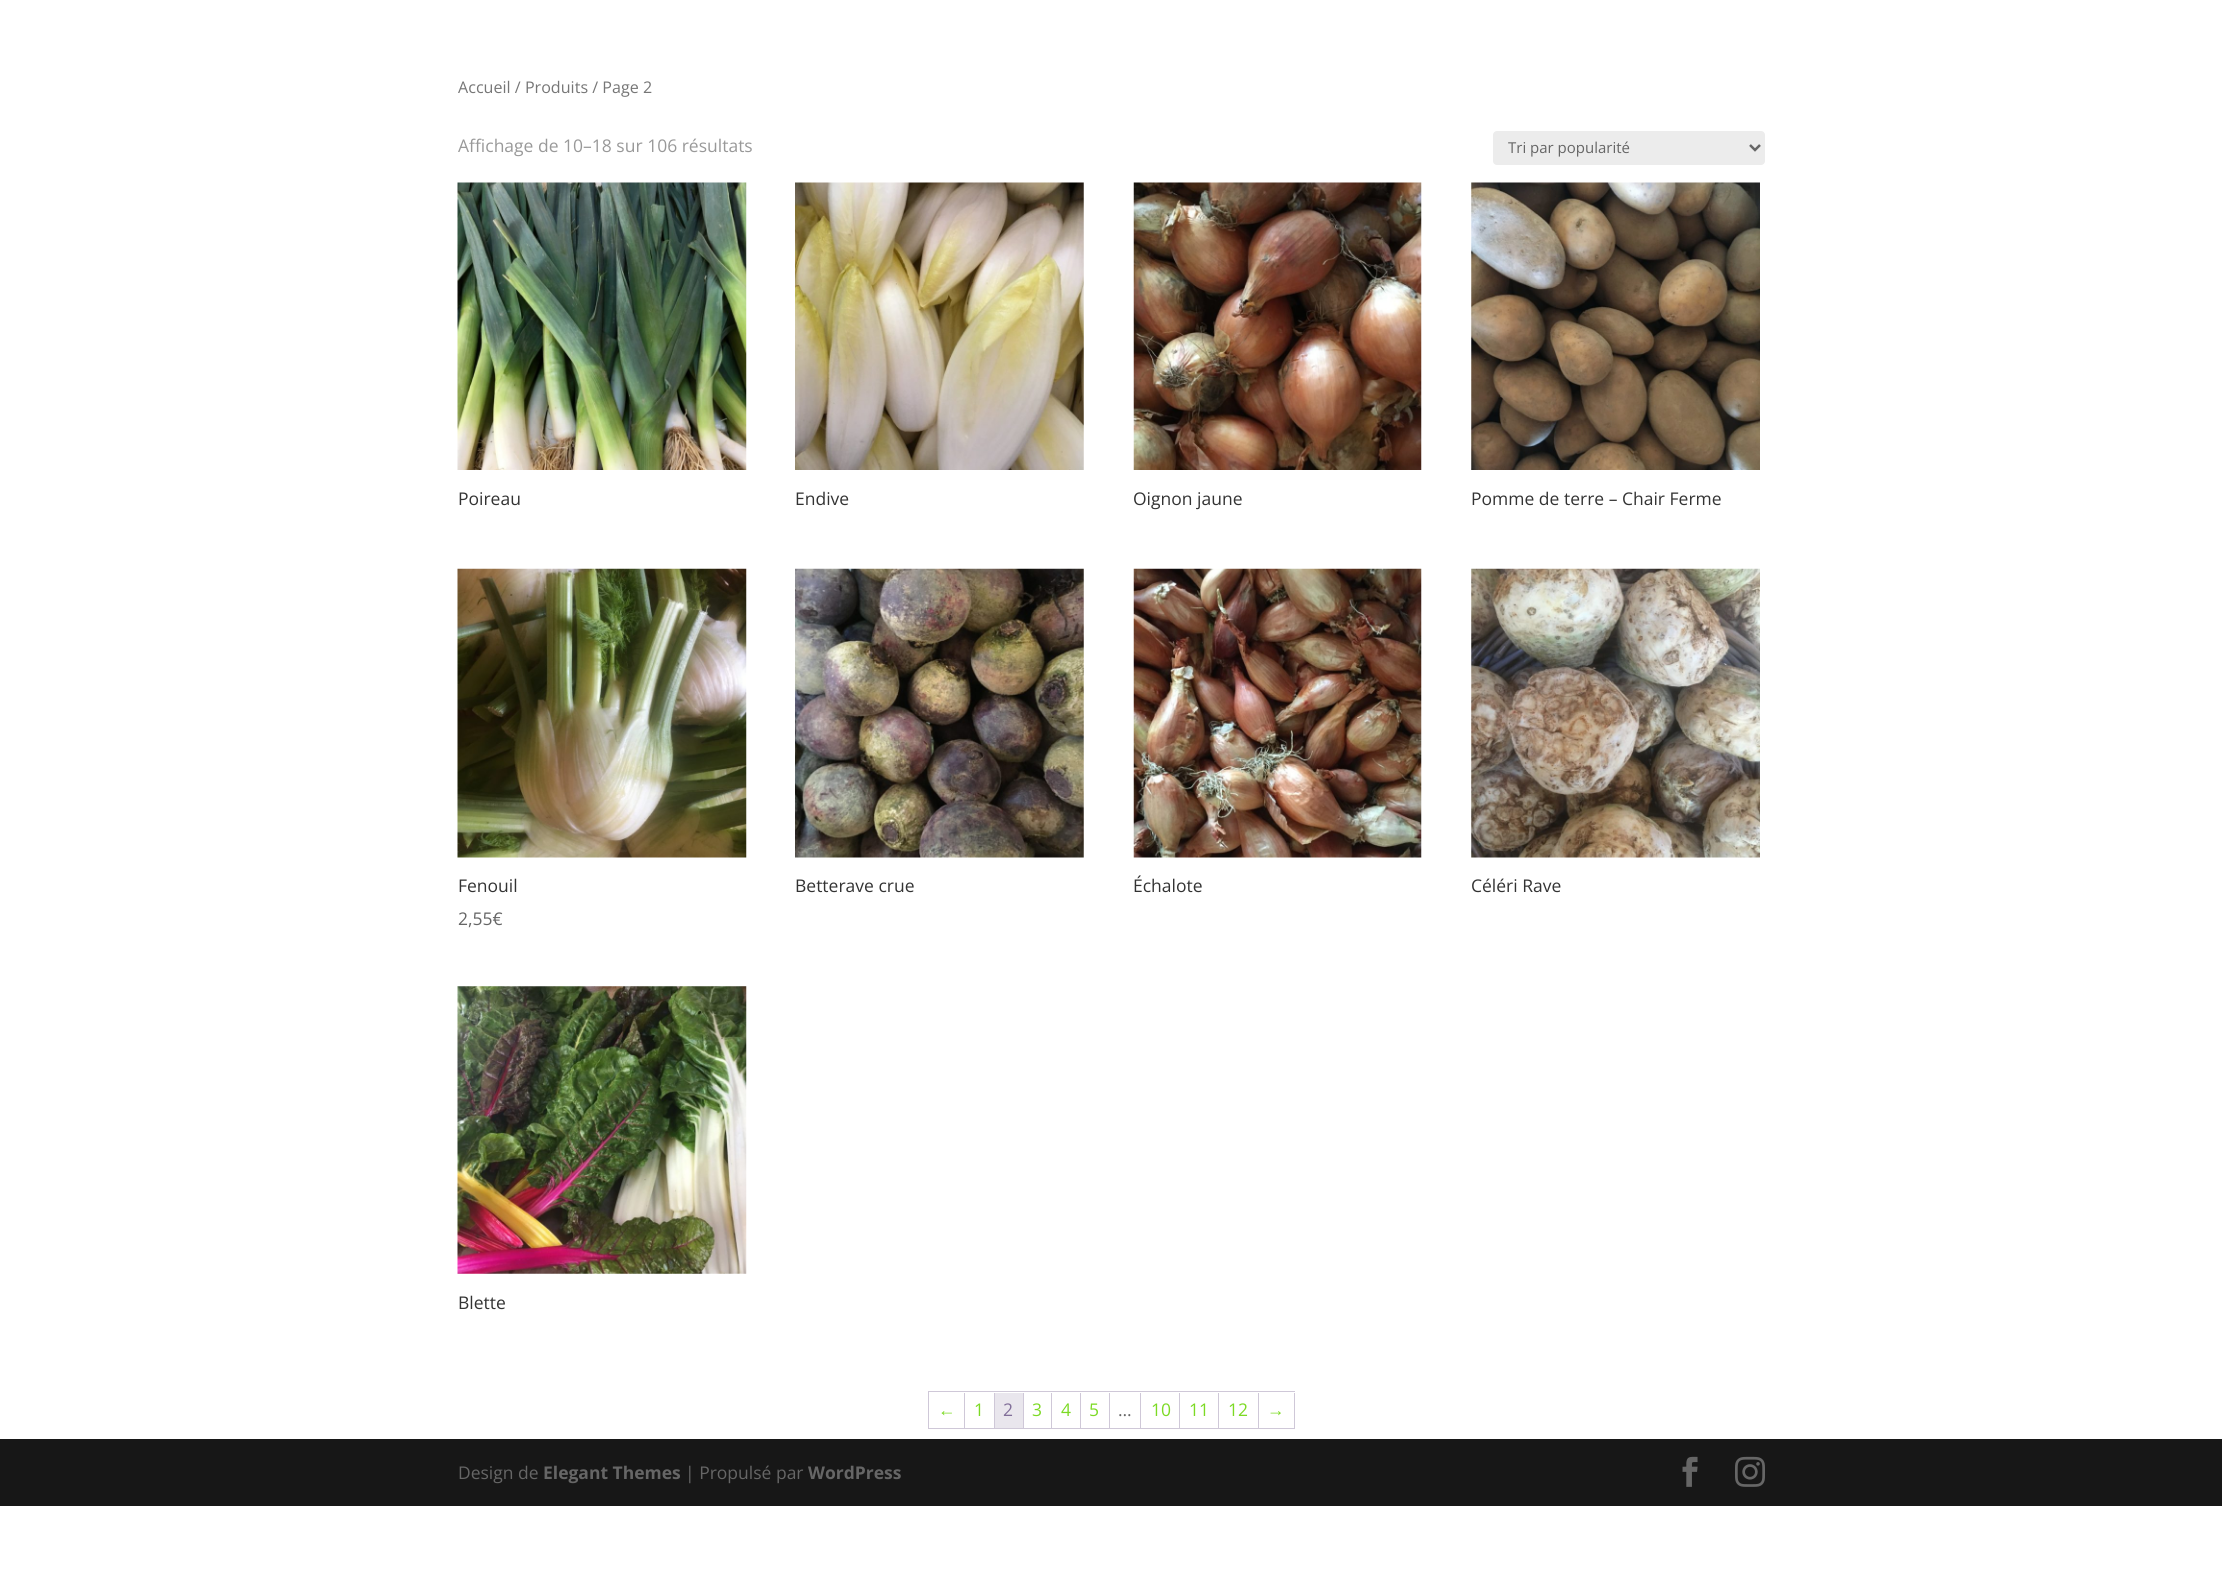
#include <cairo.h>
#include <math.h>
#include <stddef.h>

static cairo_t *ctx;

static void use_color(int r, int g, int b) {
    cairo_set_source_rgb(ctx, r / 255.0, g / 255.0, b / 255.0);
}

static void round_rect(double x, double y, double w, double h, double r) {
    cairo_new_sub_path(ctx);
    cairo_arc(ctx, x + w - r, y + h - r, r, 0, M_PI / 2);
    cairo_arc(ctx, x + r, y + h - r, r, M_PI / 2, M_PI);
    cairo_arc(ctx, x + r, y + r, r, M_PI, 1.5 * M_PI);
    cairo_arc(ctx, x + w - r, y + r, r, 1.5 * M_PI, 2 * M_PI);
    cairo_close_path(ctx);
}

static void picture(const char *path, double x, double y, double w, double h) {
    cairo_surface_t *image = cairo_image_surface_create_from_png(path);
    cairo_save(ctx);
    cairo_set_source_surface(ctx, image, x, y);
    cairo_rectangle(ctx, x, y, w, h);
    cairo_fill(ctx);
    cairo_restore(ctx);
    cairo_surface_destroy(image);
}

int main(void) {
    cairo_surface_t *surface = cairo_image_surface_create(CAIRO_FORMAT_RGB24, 2222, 1573);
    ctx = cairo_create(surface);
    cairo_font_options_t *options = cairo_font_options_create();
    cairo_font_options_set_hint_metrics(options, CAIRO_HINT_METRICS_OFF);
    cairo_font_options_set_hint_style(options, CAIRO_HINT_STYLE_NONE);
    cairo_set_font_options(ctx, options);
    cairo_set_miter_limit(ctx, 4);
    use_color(255, 255, 255);
    cairo_paint(ctx);
    cairo_select_font_face(ctx, "Open Sans", CAIRO_FONT_SLANT_NORMAL, CAIRO_FONT_WEIGHT_NORMAL);
    cairo_set_font_size(ctx, 16.1);
    use_color(118, 118, 118);
    cairo_move_to(ctx, 458, 93);
    cairo_show_text(ctx, "Accueil / Produits / Page 2");
    cairo_set_font_size(ctx, 17.5);
    use_color(153, 153, 153);
    cairo_move_to(ctx, 458, 152);
    cairo_show_text(ctx, "Affichage de 10–18 sur 106 résultats");
    use_color(236, 236, 236);
    round_rect(1493, 131, 272, 34, 4);
    cairo_fill(ctx);
    cairo_new_path(ctx);
    cairo_move_to(ctx, 1750, 145);
    cairo_line_to(ctx, 1755, 150);
    cairo_line_to(ctx, 1760, 145);
    use_color(102, 102, 102);
    cairo_set_line_width(ctx, 2.5);
    cairo_stroke(ctx);
    cairo_set_font_size(ctx, 15);
    cairo_move_to(ctx, 1508, 153);
    cairo_show_text(ctx, "Tri par popularité");
    picture("img1.png", 457, 182, 290, 288);
    cairo_set_font_size(ctx, 17.5);
    use_color(51, 51, 51);
    cairo_move_to(ctx, 458, 505);
    cairo_show_text(ctx, "Poireau");
    picture("img2.png", 795, 182, 289, 288);
    cairo_move_to(ctx, 795, 505);
    cairo_show_text(ctx, "Endive");
    picture("img3.png", 1133, 182, 289, 288);
    cairo_move_to(ctx, 1133, 505);
    cairo_show_text(ctx, "Oignon jaune");
    picture("img4.png", 1471, 182, 289, 288);
    cairo_move_to(ctx, 1471, 505);
    cairo_show_text(ctx, "Pomme de terre – Chair Ferme");
    picture("img5.png", 457, 568, 290, 290);
    cairo_move_to(ctx, 458, 892);
    cairo_show_text(ctx, "Fenouil");
    use_color(102, 102, 102);
    cairo_move_to(ctx, 458, 925);
    cairo_show_text(ctx, "2,55€");
    picture("img6.png", 795, 568, 289, 290);
    use_color(51, 51, 51);
    cairo_move_to(ctx, 795, 892);
    cairo_show_text(ctx, "Betterave crue");
    picture("img7.png", 1133, 568, 289, 290);
    cairo_move_to(ctx, 1133, 892);
    cairo_show_text(ctx, "Échalote");
    picture("img8.png", 1471, 568, 289, 290);
    cairo_move_to(ctx, 1471, 892);
    cairo_show_text(ctx, "Céléri Rave");
    picture("img9.png", 457, 986, 290, 288);
    cairo_move_to(ctx, 458, 1309);
    cairo_show_text(ctx, "Blette");
    use_color(207, 200, 216);
    cairo_rectangle(ctx, 928, 1391, 367, 1);
    cairo_fill(ctx);
    cairo_rectangle(ctx, 928, 1428, 367, 1);
    cairo_fill(ctx);
    cairo_rectangle(ctx, 928, 1391, 1, 38);
    cairo_fill(ctx);
    cairo_rectangle(ctx, 964, 1393, 1, 35);
    cairo_fill(ctx);
    cairo_select_font_face(ctx, "Liberation Sans", CAIRO_FONT_SLANT_NORMAL, CAIRO_FONT_WEIGHT_NORMAL);
    use_color(124, 218, 36);
    cairo_move_to(ctx, 938, 1416);
    cairo_show_text(ctx, "←");
    use_color(207, 200, 216);
    cairo_rectangle(ctx, 994, 1393, 1, 35);
    cairo_fill(ctx);
    cairo_select_font_face(ctx, "Open Sans", CAIRO_FONT_SLANT_NORMAL, CAIRO_FONT_WEIGHT_NORMAL);
    use_color(124, 218, 36);
    cairo_move_to(ctx, 974, 1416);
    cairo_show_text(ctx, "1");
    use_color(207, 200, 216);
    cairo_rectangle(ctx, 1023, 1393, 1, 35);
    cairo_fill(ctx);
    use_color(233, 230, 237);
    cairo_rectangle(ctx, 995, 1393, 28, 35);
    cairo_fill(ctx);
    use_color(129, 110, 153);
    cairo_move_to(ctx, 1003, 1416);
    cairo_show_text(ctx, "2");
    use_color(207, 200, 216);
    cairo_rectangle(ctx, 1051, 1393, 1, 35);
    cairo_fill(ctx);
    use_color(124, 218, 36);
    cairo_move_to(ctx, 1032, 1416);
    cairo_show_text(ctx, "3");
    use_color(207, 200, 216);
    cairo_rectangle(ctx, 1080, 1393, 1, 35);
    cairo_fill(ctx);
    use_color(124, 218, 36);
    cairo_move_to(ctx, 1061, 1416);
    cairo_show_text(ctx, "4");
    use_color(207, 200, 216);
    cairo_rectangle(ctx, 1109, 1393, 1, 35);
    cairo_fill(ctx);
    use_color(124, 218, 36);
    cairo_move_to(ctx, 1089, 1416);
    cairo_show_text(ctx, "5");
    use_color(207, 200, 216);
    cairo_rectangle(ctx, 1140, 1393, 1, 35);
    cairo_fill(ctx);
    use_color(102, 102, 102);
    cairo_move_to(ctx, 1118, 1416);
    cairo_show_text(ctx, "…");
    use_color(207, 200, 216);
    cairo_rectangle(ctx, 1179, 1393, 1, 35);
    cairo_fill(ctx);
    use_color(124, 218, 36);
    cairo_move_to(ctx, 1151, 1416);
    cairo_show_text(ctx, "10");
    use_color(207, 200, 216);
    cairo_rectangle(ctx, 1218, 1393, 1, 35);
    cairo_fill(ctx);
    use_color(124, 218, 36);
    cairo_move_to(ctx, 1189, 1416);
    cairo_show_text(ctx, "11");
    use_color(207, 200, 216);
    cairo_rectangle(ctx, 1258, 1393, 1, 35);
    cairo_fill(ctx);
    use_color(124, 218, 36);
    cairo_move_to(ctx, 1228, 1416);
    cairo_show_text(ctx, "12");
    use_color(207, 200, 216);
    cairo_rectangle(ctx, 1294, 1393, 1, 35);
    cairo_fill(ctx);
    cairo_select_font_face(ctx, "Liberation Sans", CAIRO_FONT_SLANT_NORMAL, CAIRO_FONT_WEIGHT_NORMAL);
    use_color(124, 218, 36);
    cairo_move_to(ctx, 1267, 1416);
    cairo_show_text(ctx, "→");
    use_color(23, 23, 23);
    cairo_rectangle(ctx, 0, 1439, 2222, 67);
    cairo_fill(ctx);
    cairo_select_font_face(ctx, "Open Sans", CAIRO_FONT_SLANT_NORMAL, CAIRO_FONT_WEIGHT_NORMAL);
    use_color(102, 102, 102);
    cairo_move_to(ctx, 458, 1479);
    cairo_show_text(ctx, "Design de");
    cairo_select_font_face(ctx, "Open Sans", CAIRO_FONT_SLANT_NORMAL, CAIRO_FONT_WEIGHT_BOLD);
    cairo_move_to(ctx, 543, 1479);
    cairo_show_text(ctx, "Elegant Themes");
    cairo_select_font_face(ctx, "Open Sans", CAIRO_FONT_SLANT_NORMAL, CAIRO_FONT_WEIGHT_NORMAL);
    cairo_move_to(ctx, 685, 1479);
    cairo_show_text(ctx, "| Propulsé par");
    cairo_select_font_face(ctx, "Open Sans", CAIRO_FONT_SLANT_NORMAL, CAIRO_FONT_WEIGHT_BOLD);
    cairo_move_to(ctx, 808, 1479);
    cairo_show_text(ctx, "WordPress");
    picture("img10.png", 1682, 1456, 16, 31);
    picture("img11.png", 1735, 1456, 30, 31);
    cairo_surface_write_to_png(surface, "result.png");
    cairo_font_options_destroy(options);
    cairo_destroy(ctx);
    cairo_surface_destroy(surface);
    return 0;
}
